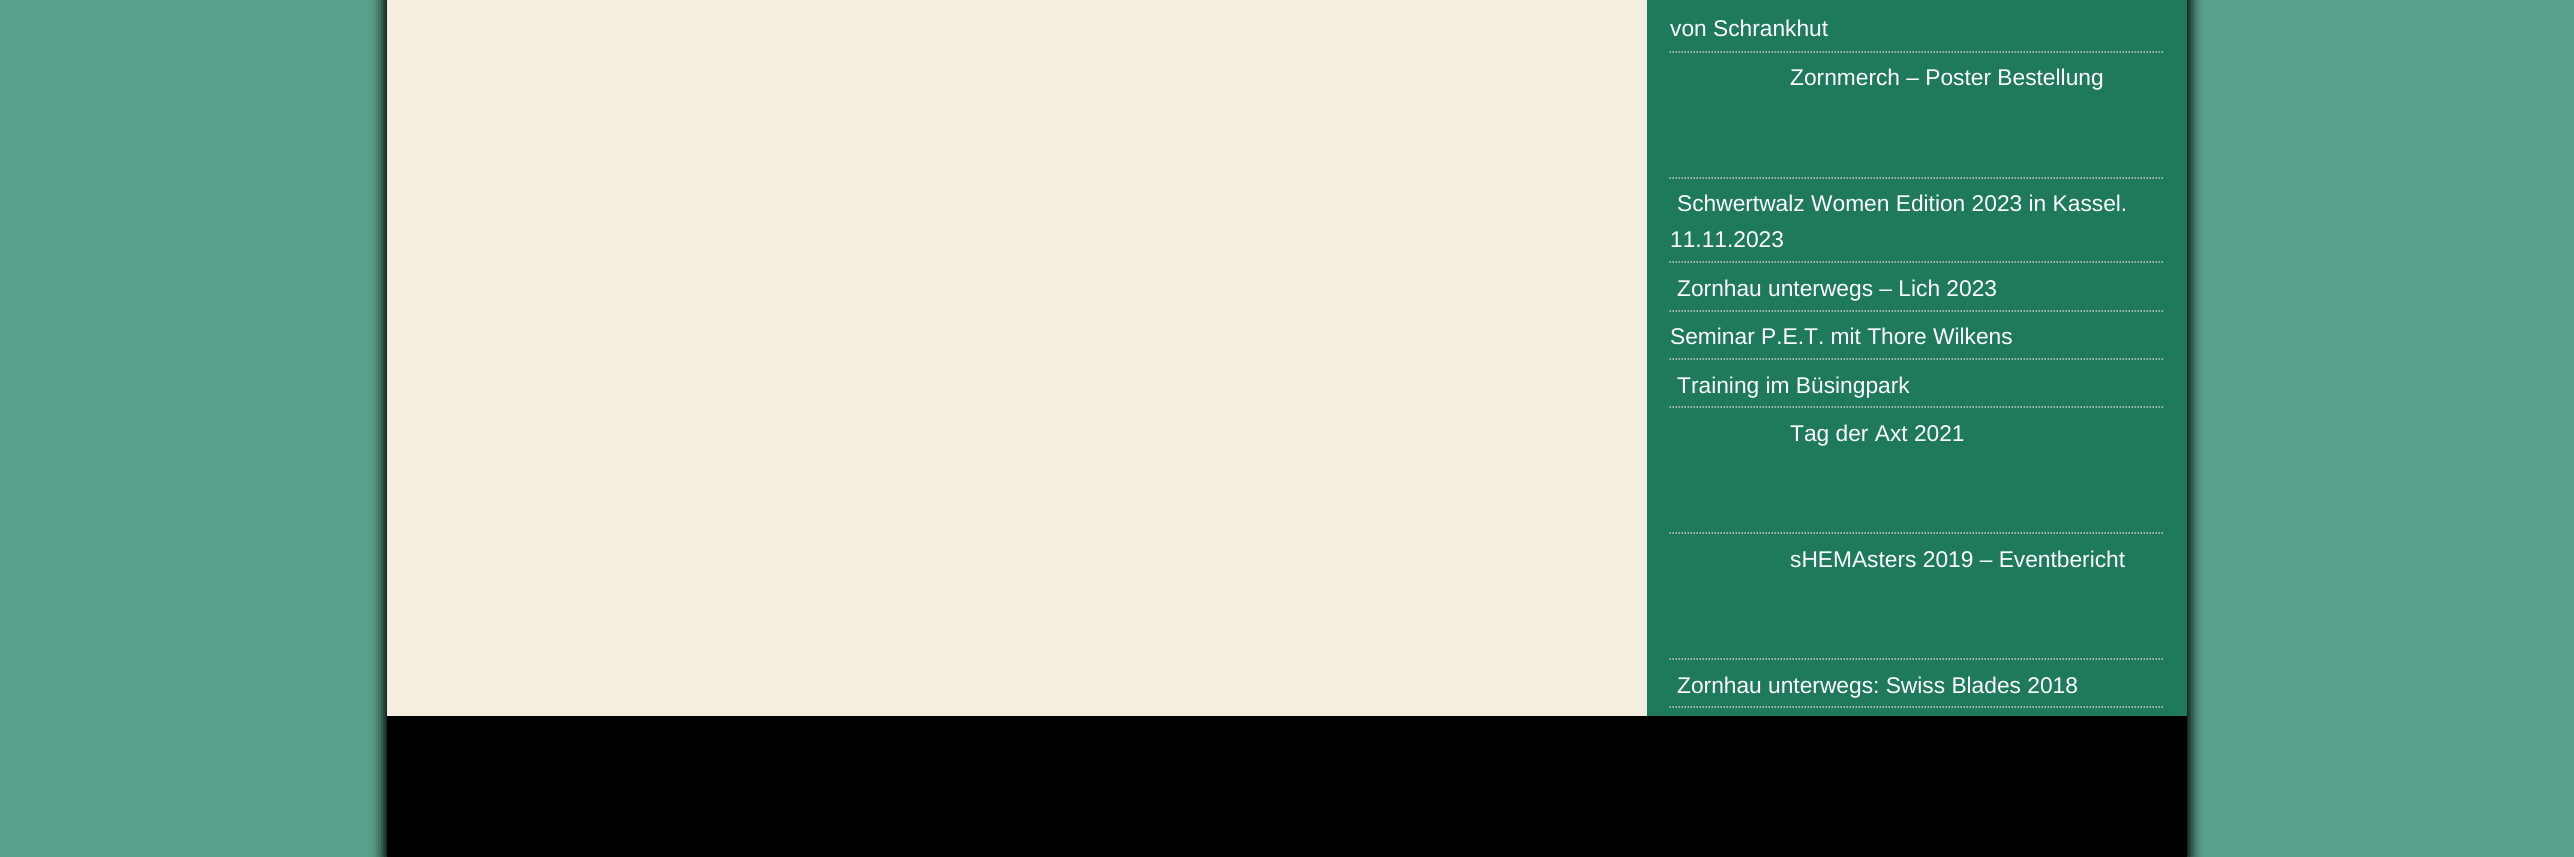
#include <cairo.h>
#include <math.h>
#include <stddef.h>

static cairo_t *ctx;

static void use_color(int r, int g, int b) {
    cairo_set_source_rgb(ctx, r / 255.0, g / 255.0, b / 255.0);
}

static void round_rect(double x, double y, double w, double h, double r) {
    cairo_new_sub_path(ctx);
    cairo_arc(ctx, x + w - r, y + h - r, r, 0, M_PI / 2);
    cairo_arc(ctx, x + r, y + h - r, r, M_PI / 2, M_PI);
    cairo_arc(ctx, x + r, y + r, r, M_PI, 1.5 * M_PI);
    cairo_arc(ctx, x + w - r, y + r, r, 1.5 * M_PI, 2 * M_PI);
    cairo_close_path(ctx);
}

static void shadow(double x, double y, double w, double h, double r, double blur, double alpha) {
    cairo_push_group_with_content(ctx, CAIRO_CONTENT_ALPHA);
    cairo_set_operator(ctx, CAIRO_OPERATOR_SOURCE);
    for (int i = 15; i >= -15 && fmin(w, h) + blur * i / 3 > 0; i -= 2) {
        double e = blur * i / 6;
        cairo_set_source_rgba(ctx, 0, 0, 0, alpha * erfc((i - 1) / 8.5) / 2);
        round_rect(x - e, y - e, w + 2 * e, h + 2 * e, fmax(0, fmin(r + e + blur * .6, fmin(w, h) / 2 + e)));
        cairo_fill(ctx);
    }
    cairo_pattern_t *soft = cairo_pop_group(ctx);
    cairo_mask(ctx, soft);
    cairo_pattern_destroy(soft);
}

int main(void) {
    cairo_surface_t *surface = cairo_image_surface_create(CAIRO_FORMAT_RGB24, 2574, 857);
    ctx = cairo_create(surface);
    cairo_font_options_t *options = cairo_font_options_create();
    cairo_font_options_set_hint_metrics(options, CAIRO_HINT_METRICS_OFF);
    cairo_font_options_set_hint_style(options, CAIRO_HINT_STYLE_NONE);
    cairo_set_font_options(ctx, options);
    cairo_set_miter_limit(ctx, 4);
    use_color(89, 161, 140);
    cairo_paint(ctx);
    use_color(0, 0, 0);
    shadow(387, -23, 1800, 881, 0, 7.5, 1);
    shadow(387, -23, 1800, 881, 0, 7.5, 1);
    use_color(243, 238, 224);
    cairo_rectangle(ctx, 387, 0, 1260, 716);
    cairo_fill(ctx);
    use_color(30, 122, 91);
    cairo_rectangle(ctx, 1647, 0, 540, 716);
    cairo_fill(ctx);
    cairo_new_path(ctx);
    cairo_move_to(ctx, 1669.5, 52);
    cairo_line_to(ctx, 2164.5, 52);
    use_color(204, 204, 204);
    cairo_set_line_width(ctx, 1.5);
    cairo_set_dash(ctx, (double[]){1.5, 1.5}, 2, 0);
    cairo_stroke(ctx);
    cairo_select_font_face(ctx, "Liberation Sans", CAIRO_FONT_SLANT_NORMAL, CAIRO_FONT_WEIGHT_NORMAL);
    cairo_set_font_size(ctx, 22.75);
    use_color(255, 255, 255);
    cairo_move_to(ctx, 1670, 36);
    cairo_show_text(ctx, "von Schrankhut");
    cairo_new_path(ctx);
    cairo_move_to(ctx, 1669.5, 178);
    cairo_line_to(ctx, 2164.5, 178);
    use_color(204, 204, 204);
    cairo_stroke(ctx);
    use_color(255, 255, 255);
    cairo_move_to(ctx, 1790, 85);
    cairo_show_text(ctx, "Zornmerch – Poster Bestellung");
    cairo_new_path(ctx);
    cairo_move_to(ctx, 1669.5, 262);
    cairo_line_to(ctx, 2164.5, 262);
    use_color(204, 204, 204);
    cairo_stroke(ctx);
    use_color(255, 255, 255);
    cairo_move_to(ctx, 1677, 211);
    cairo_show_text(ctx, "Schwertwalz Women Edition 2023 in Kassel.");
    cairo_move_to(ctx, 1670, 247);
    cairo_show_text(ctx, "11.11.2023");
    cairo_new_path(ctx);
    cairo_move_to(ctx, 1669.5, 311);
    cairo_line_to(ctx, 2164.5, 311);
    use_color(204, 204, 204);
    cairo_stroke(ctx);
    use_color(255, 255, 255);
    cairo_move_to(ctx, 1677, 296);
    cairo_show_text(ctx, "Zornhau unterwegs – Lich 2023");
    cairo_new_path(ctx);
    cairo_move_to(ctx, 1669.5, 359);
    cairo_line_to(ctx, 2164.5, 359);
    use_color(204, 204, 204);
    cairo_stroke(ctx);
    use_color(255, 255, 255);
    cairo_move_to(ctx, 1670, 344);
    cairo_show_text(ctx, "Seminar P.E.T. mit Thore Wilkens");
    cairo_new_path(ctx);
    cairo_move_to(ctx, 1669.5, 407);
    cairo_line_to(ctx, 2164.5, 407);
    use_color(204, 204, 204);
    cairo_stroke(ctx);
    use_color(255, 255, 255);
    cairo_move_to(ctx, 1677, 393);
    cairo_show_text(ctx, "Training im Büsingpark");
    cairo_new_path(ctx);
    cairo_move_to(ctx, 1669.5, 533);
    cairo_line_to(ctx, 2164.5, 533);
    use_color(204, 204, 204);
    cairo_stroke(ctx);
    use_color(255, 255, 255);
    cairo_move_to(ctx, 1790, 441);
    cairo_show_text(ctx, "Tag der Axt 2021");
    cairo_new_path(ctx);
    cairo_move_to(ctx, 1669.5, 659);
    cairo_line_to(ctx, 2164.5, 659);
    use_color(204, 204, 204);
    cairo_stroke(ctx);
    use_color(255, 255, 255);
    cairo_move_to(ctx, 1790, 567);
    cairo_show_text(ctx, "sHEMAsters 2019 – Eventbericht");
    cairo_new_path(ctx);
    cairo_move_to(ctx, 1669.5, 707);
    cairo_line_to(ctx, 2164.5, 707);
    use_color(204, 204, 204);
    cairo_stroke(ctx);
    use_color(255, 255, 255);
    cairo_move_to(ctx, 1677, 693);
    cairo_show_text(ctx, "Zornhau unterwegs: Swiss Blades 2018");
    use_color(0, 0, 0);
    cairo_rectangle(ctx, 387, 716, 1800, 141);
    cairo_fill(ctx);
    cairo_surface_write_to_png(surface, "result.png");
    cairo_font_options_destroy(options);
    cairo_destroy(ctx);
    cairo_surface_destroy(surface);
    return 0;
}
